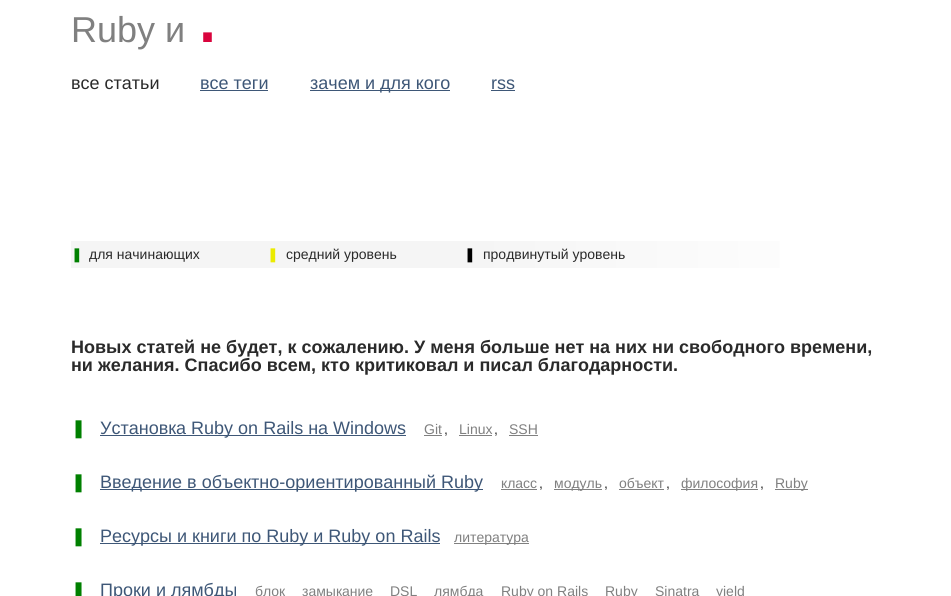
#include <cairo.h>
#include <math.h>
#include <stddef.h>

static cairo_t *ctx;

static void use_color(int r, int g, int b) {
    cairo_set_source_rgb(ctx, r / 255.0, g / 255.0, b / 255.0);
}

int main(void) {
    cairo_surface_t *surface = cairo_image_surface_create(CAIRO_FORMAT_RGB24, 951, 596);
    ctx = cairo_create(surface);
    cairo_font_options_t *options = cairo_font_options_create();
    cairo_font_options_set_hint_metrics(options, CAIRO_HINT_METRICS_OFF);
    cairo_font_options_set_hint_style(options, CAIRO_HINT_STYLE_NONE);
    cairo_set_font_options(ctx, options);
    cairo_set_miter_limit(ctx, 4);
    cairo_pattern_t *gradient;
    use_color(255, 255, 255);
    cairo_paint(ctx);
    cairo_select_font_face(ctx, "Liberation Sans", CAIRO_FONT_SLANT_NORMAL, CAIRO_FONT_WEIGHT_NORMAL);
    cairo_set_font_size(ctx, 36);
    use_color(128, 128, 128);
    cairo_move_to(ctx, 71, 42);
    cairo_show_text(ctx, "Ruby и");
    cairo_set_font_size(ctx, 90);
    use_color(217, 4, 61);
    cairo_move_to(ctx, 195, 42);
    cairo_show_text(ctx, ".");
    cairo_set_font_size(ctx, 18);
    use_color(42, 42, 42);
    cairo_move_to(ctx, 71, 89);
    cairo_show_text(ctx, "все статьи");
    use_color(62, 87, 119);
    cairo_move_to(ctx, 200, 89);
    cairo_show_text(ctx, "все теги");
    cairo_rectangle(ctx, 200, 90, 68, 1);
    cairo_fill(ctx);
    cairo_rectangle(ctx, 310, 90, 140, 1);
    cairo_fill(ctx);
    cairo_move_to(ctx, 310, 89);
    cairo_show_text(ctx, "зачем и для кого");
    cairo_move_to(ctx, 491, 89);
    cairo_show_text(ctx, "rss");
    cairo_rectangle(ctx, 491, 90, 24, 1);
    cairo_fill(ctx);
    gradient = cairo_pattern_create_linear(71, 255, 881, 254);
    cairo_pattern_add_color_stop_rgba(gradient, 0.5, 0.961, 0.961, 0.961, 1);
    cairo_pattern_add_color_stop_rgba(gradient, 1, 1, 1, 1, 1);
    cairo_set_source(ctx, gradient);
    cairo_pattern_destroy(gradient);
    cairo_rectangle(ctx, 71, 241, 709, 27);
    cairo_fill(ctx);
    cairo_select_font_face(ctx, "DejaVu Sans", CAIRO_FONT_SLANT_NORMAL, CAIRO_FONT_WEIGHT_NORMAL);
    cairo_set_font_size(ctx, 14);
    use_color(0, 128, 0);
    cairo_move_to(ctx, 71, 259);
    cairo_show_text(ctx, "❚");
    cairo_select_font_face(ctx, "Liberation Sans", CAIRO_FONT_SLANT_NORMAL, CAIRO_FONT_WEIGHT_NORMAL);
    use_color(42, 42, 42);
    cairo_move_to(ctx, 89, 259);
    cairo_show_text(ctx, "для начинающих");
    cairo_select_font_face(ctx, "DejaVu Sans", CAIRO_FONT_SLANT_NORMAL, CAIRO_FONT_WEIGHT_NORMAL);
    use_color(235, 235, 0);
    cairo_move_to(ctx, 267, 259);
    cairo_show_text(ctx, "❚");
    cairo_select_font_face(ctx, "Liberation Sans", CAIRO_FONT_SLANT_NORMAL, CAIRO_FONT_WEIGHT_NORMAL);
    use_color(42, 42, 42);
    cairo_move_to(ctx, 286, 259);
    cairo_show_text(ctx, "средний уровень");
    cairo_select_font_face(ctx, "DejaVu Sans", CAIRO_FONT_SLANT_NORMAL, CAIRO_FONT_WEIGHT_NORMAL);
    use_color(0, 0, 0);
    cairo_move_to(ctx, 464, 259);
    cairo_show_text(ctx, "❚");
    cairo_select_font_face(ctx, "Liberation Sans", CAIRO_FONT_SLANT_NORMAL, CAIRO_FONT_WEIGHT_NORMAL);
    use_color(42, 42, 42);
    cairo_move_to(ctx, 483, 259);
    cairo_show_text(ctx, "продвинутый уровень");
    cairo_select_font_face(ctx, "Liberation Sans", CAIRO_FONT_SLANT_NORMAL, CAIRO_FONT_WEIGHT_BOLD);
    cairo_set_font_size(ctx, 18);
    cairo_move_to(ctx, 71, 353);
    cairo_show_text(ctx, "Новых статей не будет, к сожалению. У меня больше нет на них ни свободного времени,");
    cairo_move_to(ctx, 71, 371);
    cairo_show_text(ctx, "ни желания. Спасибо всем, кто критиковал и писал благодарности.");
    cairo_select_font_face(ctx, "DejaVu Sans", CAIRO_FONT_SLANT_NORMAL, CAIRO_FONT_WEIGHT_NORMAL);
    use_color(0, 128, 0);
    cairo_move_to(ctx, 71, 434);
    cairo_show_text(ctx, "❚");
    use_color(62, 87, 119);
    cairo_rectangle(ctx, 100, 435, 306, 1);
    cairo_fill(ctx);
    cairo_select_font_face(ctx, "Liberation Sans", CAIRO_FONT_SLANT_NORMAL, CAIRO_FONT_WEIGHT_NORMAL);
    cairo_move_to(ctx, 100, 434);
    cairo_show_text(ctx, "Установка Ruby on Rails на Windows");
    cairo_set_font_size(ctx, 14);
    use_color(128, 128, 128);
    cairo_move_to(ctx, 424, 434);
    cairo_show_text(ctx, "Git");
    use_color(42, 42, 42);
    cairo_move_to(ctx, 444, 434);
    cairo_show_text(ctx, ",");
    use_color(128, 128, 128);
    cairo_rectangle(ctx, 424, 435, 18, 1);
    cairo_fill(ctx);
    cairo_move_to(ctx, 459, 434);
    cairo_show_text(ctx, "Linux");
    use_color(42, 42, 42);
    cairo_move_to(ctx, 494, 434);
    cairo_show_text(ctx, ",");
    use_color(128, 128, 128);
    cairo_rectangle(ctx, 459, 435, 33, 1);
    cairo_fill(ctx);
    cairo_move_to(ctx, 509, 434);
    cairo_show_text(ctx, "SSH");
    cairo_rectangle(ctx, 509, 435, 29, 1);
    cairo_fill(ctx);
    cairo_select_font_face(ctx, "DejaVu Sans", CAIRO_FONT_SLANT_NORMAL, CAIRO_FONT_WEIGHT_NORMAL);
    cairo_set_font_size(ctx, 18);
    use_color(0, 128, 0);
    cairo_move_to(ctx, 71, 488);
    cairo_show_text(ctx, "❚");
    use_color(62, 87, 119);
    cairo_rectangle(ctx, 100, 489, 383, 1);
    cairo_fill(ctx);
    cairo_select_font_face(ctx, "Liberation Sans", CAIRO_FONT_SLANT_NORMAL, CAIRO_FONT_WEIGHT_NORMAL);
    cairo_move_to(ctx, 100, 488);
    cairo_show_text(ctx, "Введение в объектно-ориентированный Ruby");
    cairo_set_font_size(ctx, 14);
    use_color(128, 128, 128);
    cairo_move_to(ctx, 501, 488);
    cairo_show_text(ctx, "класс");
    use_color(42, 42, 42);
    cairo_move_to(ctx, 539, 488);
    cairo_show_text(ctx, ",");
    use_color(128, 128, 128);
    cairo_rectangle(ctx, 501, 489, 36, 1);
    cairo_fill(ctx);
    cairo_rectangle(ctx, 554, 489, 48, 1);
    cairo_fill(ctx);
    cairo_move_to(ctx, 554, 488);
    cairo_show_text(ctx, "модуль");
    use_color(42, 42, 42);
    cairo_move_to(ctx, 604, 488);
    cairo_show_text(ctx, ",");
    use_color(128, 128, 128);
    cairo_move_to(ctx, 619, 488);
    cairo_show_text(ctx, "объект");
    use_color(42, 42, 42);
    cairo_move_to(ctx, 666, 488);
    cairo_show_text(ctx, ",");
    use_color(128, 128, 128);
    cairo_rectangle(ctx, 619, 489, 45, 1);
    cairo_fill(ctx);
    cairo_rectangle(ctx, 681, 489, 77, 1);
    cairo_fill(ctx);
    cairo_move_to(ctx, 681, 488);
    cairo_show_text(ctx, "философия");
    use_color(42, 42, 42);
    cairo_move_to(ctx, 760, 488);
    cairo_show_text(ctx, ",");
    use_color(128, 128, 128);
    cairo_rectangle(ctx, 775, 489, 33, 1);
    cairo_fill(ctx);
    cairo_move_to(ctx, 775, 488);
    cairo_show_text(ctx, "Ruby");
    cairo_select_font_face(ctx, "DejaVu Sans", CAIRO_FONT_SLANT_NORMAL, CAIRO_FONT_WEIGHT_NORMAL);
    cairo_set_font_size(ctx, 18);
    use_color(0, 128, 0);
    cairo_move_to(ctx, 71, 542);
    cairo_show_text(ctx, "❚");
    use_color(62, 87, 119);
    cairo_rectangle(ctx, 100, 543, 340, 1);
    cairo_fill(ctx);
    cairo_select_font_face(ctx, "Liberation Sans", CAIRO_FONT_SLANT_NORMAL, CAIRO_FONT_WEIGHT_NORMAL);
    cairo_move_to(ctx, 100, 542);
    cairo_show_text(ctx, "Ресурсы и книги по Ruby и Ruby on Rails");
    use_color(128, 128, 128);
    cairo_rectangle(ctx, 454, 543, 75, 1);
    cairo_fill(ctx);
    cairo_set_font_size(ctx, 14);
    cairo_move_to(ctx, 454, 542);
    cairo_show_text(ctx, "литература");
    cairo_select_font_face(ctx, "DejaVu Sans", CAIRO_FONT_SLANT_NORMAL, CAIRO_FONT_WEIGHT_NORMAL);
    cairo_set_font_size(ctx, 18);
    use_color(0, 128, 0);
    cairo_move_to(ctx, 71, 596);
    cairo_show_text(ctx, "❚");
    cairo_select_font_face(ctx, "Liberation Sans", CAIRO_FONT_SLANT_NORMAL, CAIRO_FONT_WEIGHT_NORMAL);
    use_color(62, 87, 119);
    cairo_move_to(ctx, 100, 596);
    cairo_show_text(ctx, "Проки и лямбды");
    cairo_set_font_size(ctx, 14);
    use_color(128, 128, 128);
    cairo_move_to(ctx, 255, 596);
    cairo_show_text(ctx, "блок");
    cairo_move_to(ctx, 302, 596);
    cairo_show_text(ctx, "замыкание");
    cairo_move_to(ctx, 390, 596);
    cairo_show_text(ctx, "DSL");
    cairo_move_to(ctx, 434, 596);
    cairo_show_text(ctx, "лямбда");
    cairo_move_to(ctx, 501, 596);
    cairo_show_text(ctx, "Ruby on Rails");
    cairo_move_to(ctx, 605, 596);
    cairo_show_text(ctx, "Ruby");
    cairo_move_to(ctx, 655, 596);
    cairo_show_text(ctx, "Sinatra");
    cairo_move_to(ctx, 716, 596);
    cairo_show_text(ctx, "yield");
    cairo_surface_write_to_png(surface, "result.png");
    cairo_font_options_destroy(options);
    cairo_destroy(ctx);
    cairo_surface_destroy(surface);
    return 0;
}
